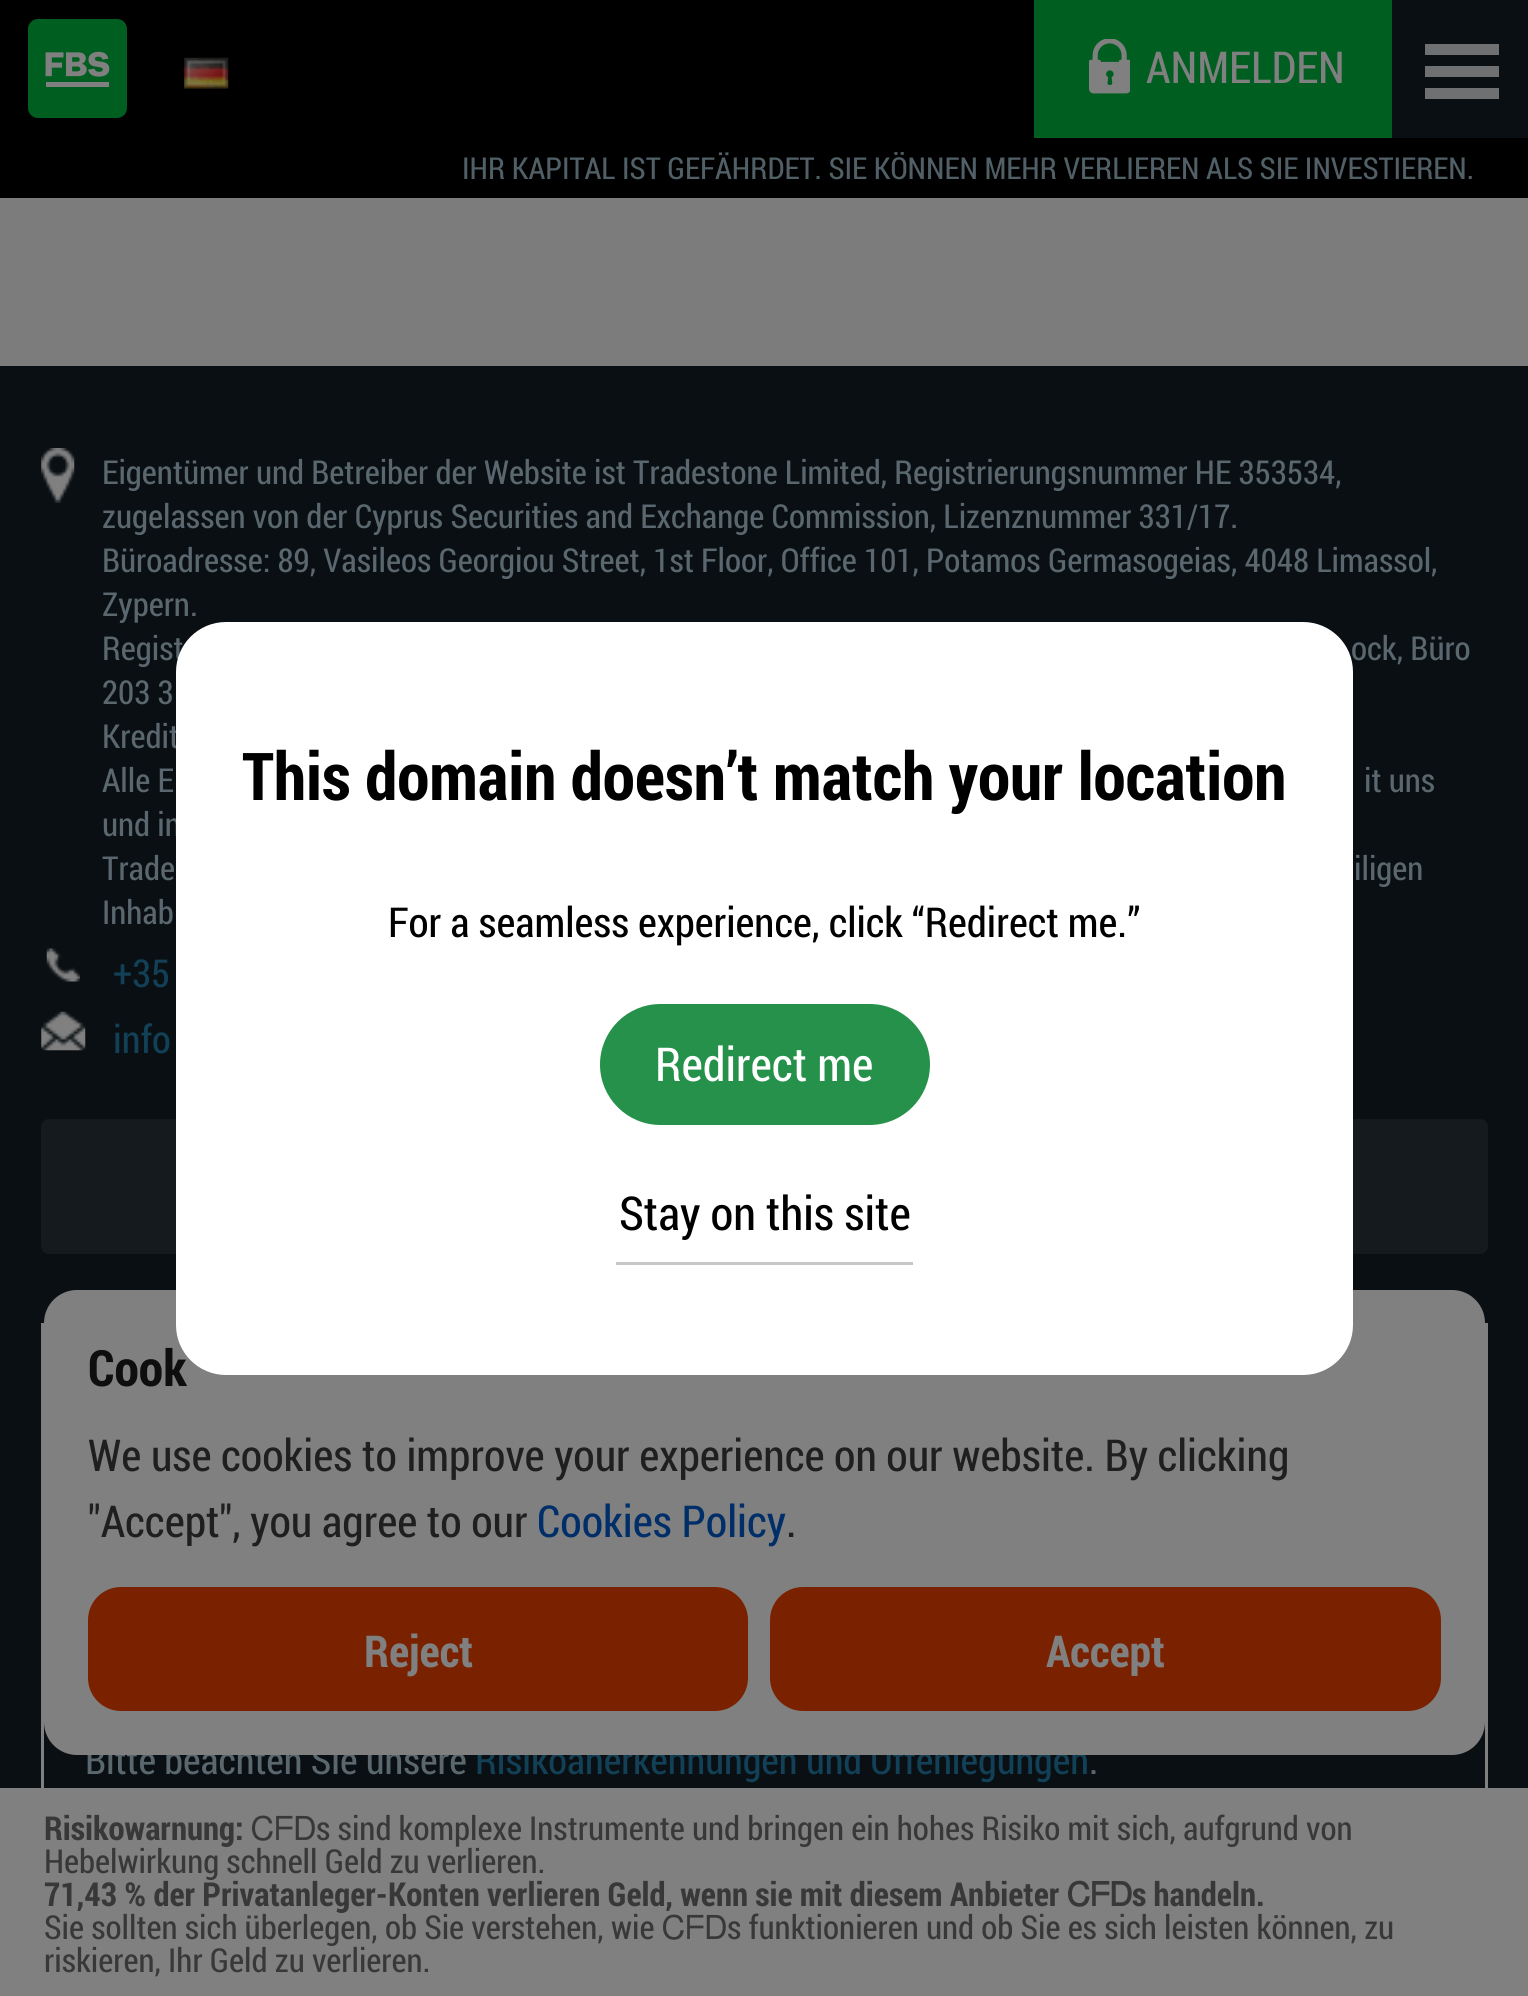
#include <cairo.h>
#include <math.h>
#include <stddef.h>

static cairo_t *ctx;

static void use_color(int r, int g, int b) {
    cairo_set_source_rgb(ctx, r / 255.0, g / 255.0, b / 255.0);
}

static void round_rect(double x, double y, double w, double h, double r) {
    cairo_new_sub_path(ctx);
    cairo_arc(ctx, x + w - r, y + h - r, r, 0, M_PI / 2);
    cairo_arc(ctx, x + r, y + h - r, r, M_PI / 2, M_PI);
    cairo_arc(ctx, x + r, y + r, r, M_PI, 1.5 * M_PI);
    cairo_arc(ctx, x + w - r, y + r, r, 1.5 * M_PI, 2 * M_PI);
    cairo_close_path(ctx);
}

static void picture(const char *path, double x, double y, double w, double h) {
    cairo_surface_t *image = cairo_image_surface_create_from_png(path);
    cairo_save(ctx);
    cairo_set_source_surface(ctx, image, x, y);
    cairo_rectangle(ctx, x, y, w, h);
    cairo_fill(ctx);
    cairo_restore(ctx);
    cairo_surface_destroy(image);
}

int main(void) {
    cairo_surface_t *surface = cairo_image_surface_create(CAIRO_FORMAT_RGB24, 1528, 1996);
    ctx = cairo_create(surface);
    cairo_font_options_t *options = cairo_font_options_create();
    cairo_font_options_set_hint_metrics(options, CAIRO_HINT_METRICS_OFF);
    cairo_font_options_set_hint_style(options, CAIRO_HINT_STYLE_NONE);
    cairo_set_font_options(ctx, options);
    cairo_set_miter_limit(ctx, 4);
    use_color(124, 124, 124);
    cairo_paint(ctx);
    use_color(0, 0, 0);
    cairo_rectangle(ctx, 0, 0, 1034, 138);
    cairo_fill(ctx);
    picture("img1.png", 28, 19, 99, 99);
    use_color(9, 15, 18);
    cairo_rectangle(ctx, 1392, 0, 136, 138);
    cairo_fill(ctx);
    use_color(110, 112, 113);
    cairo_rectangle(ctx, 1425, 44, 74, 11);
    cairo_fill(ctx);
    cairo_rectangle(ctx, 1425, 66, 74, 11);
    cairo_fill(ctx);
    cairo_rectangle(ctx, 1425, 88, 74, 11);
    cairo_fill(ctx);
    picture("img2.png", 184, 57, 45, 32);
    use_color(0, 95, 32);
    cairo_rectangle(ctx, 1034, 0, 358, 138);
    cairo_fill(ctx);
    picture("img3.png", 1089, 39, 41, 55);
    cairo_select_font_face(ctx, "Roboto Condensed", CAIRO_FONT_SLANT_NORMAL, CAIRO_FONT_WEIGHT_NORMAL);
    cairo_set_font_size(ctx, 44);
    use_color(128, 128, 128);
    cairo_move_to(ctx, 1146, 83);
    cairo_show_text(ctx, "ANMELDEN");
    use_color(0, 0, 0);
    cairo_rectangle(ctx, 0, 138, 1528, 60);
    cairo_fill(ctx);
    cairo_set_font_size(ctx, 30.25);
    use_color(81, 95, 103);
    cairo_move_to(ctx, 462, 179);
    cairo_show_text(ctx, "IHR KAPITAL IST GEFÄHRDET. SIE KÖNNEN MEHR VERLIEREN ALS SIE INVESTIEREN.");
    use_color(9, 15, 18);
    cairo_rectangle(ctx, 0, 366, 1528, 1422);
    cairo_fill(ctx);
    picture("img4.png", 41, 448, 34, 55);
    cairo_set_font_size(ctx, 33);
    use_color(90, 103, 110);
    cairo_move_to(ctx, 102, 484);
    cairo_show_text(ctx, "Eigentümer und Betreiber der Website ist Tradestone Limited, Registrierungsnummer HE 353534,");
    cairo_move_to(ctx, 102, 528);
    cairo_show_text(ctx, "zugelassen von der Cyprus Securities and Exchange Commission, Lizenznummer 331/17.");
    cairo_move_to(ctx, 102, 572);
    cairo_show_text(ctx, "Büroadresse: 89, Vasileos Georgiou Street, 1st Floor, Office 101, Potamos Germasogeias, 4048 Limassol,");
    cairo_move_to(ctx, 102, 616);
    cairo_show_text(ctx, "Zypern.");
    cairo_move_to(ctx, 102, 660);
    cairo_show_text(ctx, "Regist");
    cairo_move_to(ctx, 1351, 660);
    cairo_show_text(ctx, "ock, Büro");
    cairo_move_to(ctx, 102, 704);
    cairo_show_text(ctx, "203 3");
    cairo_move_to(ctx, 102, 748);
    cairo_show_text(ctx, "Kredit");
    cairo_move_to(ctx, 102, 792);
    cairo_show_text(ctx, "Alle E");
    cairo_move_to(ctx, 1364, 792);
    cairo_show_text(ctx, "it uns");
    cairo_move_to(ctx, 102, 836);
    cairo_show_text(ctx, "und in");
    cairo_move_to(ctx, 102, 880);
    cairo_show_text(ctx, "Trade");
    cairo_move_to(ctx, 1354, 880);
    cairo_show_text(ctx, "iligen");
    cairo_move_to(ctx, 102, 924);
    cairo_show_text(ctx, "Inhab");
    picture("img5.png", 46, 948, 34, 34);
    cairo_set_font_size(ctx, 38.5);
    use_color(18, 64, 87);
    cairo_move_to(ctx, 113, 987);
    cairo_show_text(ctx, "+35");
    picture("img6.png", 41, 1011, 45, 40);
    cairo_move_to(ctx, 113, 1053);
    cairo_show_text(ctx, "info");
    use_color(20, 26, 29);
    round_rect(41, 1119, 1447, 135, 8);
    cairo_fill(ctx);
    cairo_rectangle(ctx, 42.5, 1324.5, 1444, 660);
    use_color(128, 128, 128);
    cairo_set_line_width(ctx, 3);
    cairo_stroke(ctx);
    use_color(90, 103, 110);
    cairo_move_to(ctx, 85, 1774);
    cairo_show_text(ctx, "Bitte beachten Sie unsere");
    use_color(18, 64, 87);
    cairo_move_to(ctx, 475, 1774);
    cairo_show_text(ctx, "Risikoanerkennungen und Offenlegungen");
    use_color(90, 103, 110);
    cairo_move_to(ctx, 1089, 1774);
    cairo_show_text(ctx, ".");
    use_color(128, 128, 128);
    round_rect(44, 1290, 1441, 465, 33);
    cairo_fill(ctx);
    cairo_select_font_face(ctx, "Roboto Condensed", CAIRO_FONT_SLANT_NORMAL, CAIRO_FONT_WEIGHT_BOLD);
    cairo_set_font_size(ctx, 50);
    use_color(14, 14, 15);
    cairo_move_to(ctx, 88, 1386);
    cairo_show_text(ctx, "Cook");
    use_color(255, 255, 255);
    round_rect(176, 622, 1177, 753, 50);
    cairo_fill(ctx);
    cairo_set_font_size(ctx, 66);
    use_color(0, 0, 0);
    cairo_move_to(ctx, 242, 800);
    cairo_show_text(ctx, "This domain doesn’t match your location");
    cairo_select_font_face(ctx, "Roboto Condensed", CAIRO_FONT_SLANT_NORMAL, CAIRO_FONT_WEIGHT_NORMAL);
    cairo_set_font_size(ctx, 41.25);
    cairo_move_to(ctx, 388, 937);
    cairo_show_text(ctx, "For a seamless experience, click “Redirect me.”");
    use_color(38, 145, 74);
    round_rect(600, 1004, 330, 121, 60.5);
    cairo_fill(ctx);
    cairo_set_font_size(ctx, 46.75);
    use_color(255, 255, 255);
    cairo_move_to(ctx, 655, 1081);
    cairo_show_text(ctx, "Redirect me");
    use_color(199, 199, 199);
    cairo_rectangle(ctx, 616, 1262, 297, 3);
    cairo_fill(ctx);
    use_color(0, 0, 0);
    cairo_move_to(ctx, 619, 1230);
    cairo_show_text(ctx, "Stay on this site");
    cairo_set_font_size(ctx, 44);
    use_color(31, 31, 31);
    cairo_move_to(ctx, 88, 1471);
    cairo_show_text(ctx, "We use cookies to improve your experience on our website. By clicking");
    cairo_move_to(ctx, 88, 1537);
    cairo_show_text(ctx, "\"Accept\", you agree to our");
    use_color(0, 46, 105);
    cairo_move_to(ctx, 537, 1537);
    cairo_show_text(ctx, "Cookies Policy");
    use_color(31, 31, 31);
    cairo_move_to(ctx, 786, 1537);
    cairo_show_text(ctx, ".");
    use_color(122, 34, 0);
    round_rect(88, 1587, 660, 124, 33);
    cairo_fill(ctx);
    cairo_select_font_face(ctx, "Roboto Condensed", CAIRO_FONT_SLANT_NORMAL, CAIRO_FONT_WEIGHT_BOLD);
    use_color(128, 128, 128);
    cairo_move_to(ctx, 364, 1667);
    cairo_show_text(ctx, "Reject");
    use_color(122, 34, 0);
    round_rect(770, 1587, 671, 124, 33);
    cairo_fill(ctx);
    use_color(128, 128, 128);
    cairo_move_to(ctx, 1046, 1667);
    cairo_show_text(ctx, "Accept");
    cairo_rectangle(ctx, 0, 1788, 1528, 208);
    cairo_fill(ctx);
    cairo_set_font_size(ctx, 33);
    use_color(56, 56, 57);
    cairo_move_to(ctx, 44, 1840);
    cairo_show_text(ctx, "Risikowarnung:");
    cairo_select_font_face(ctx, "FreeSans", CAIRO_FONT_SLANT_NORMAL, CAIRO_FONT_WEIGHT_NORMAL);
    cairo_move_to(ctx, 251, 1840);
    cairo_show_text(ctx, "ᏟᖴᎠ");
    cairo_select_font_face(ctx, "Roboto Condensed", CAIRO_FONT_SLANT_NORMAL, CAIRO_FONT_WEIGHT_NORMAL);
    cairo_move_to(ctx, 316, 1840);
    cairo_show_text(ctx, "s sind komplexe Instrumente und bringen ein hohes Risiko mit sich, aufgrund von");
    cairo_move_to(ctx, 44, 1873);
    cairo_show_text(ctx, "Hebelwirkung schnell Geld zu verlieren.");
    cairo_select_font_face(ctx, "Roboto Condensed", CAIRO_FONT_SLANT_NORMAL, CAIRO_FONT_WEIGHT_BOLD);
    cairo_move_to(ctx, 44, 1906);
    cairo_show_text(ctx, "71,43 % der Privatanleger-Konten verlieren Geld, wenn sie mit diesem Anbieter");
    cairo_select_font_face(ctx, "FreeSans", CAIRO_FONT_SLANT_NORMAL, CAIRO_FONT_WEIGHT_BOLD);
    cairo_move_to(ctx, 1067, 1906);
    cairo_show_text(ctx, "ᏟᖴᎠ");
    cairo_select_font_face(ctx, "Roboto Condensed", CAIRO_FONT_SLANT_NORMAL, CAIRO_FONT_WEIGHT_BOLD);
    cairo_move_to(ctx, 1132, 1906);
    cairo_show_text(ctx, "s handeln.");
    cairo_select_font_face(ctx, "Roboto Condensed", CAIRO_FONT_SLANT_NORMAL, CAIRO_FONT_WEIGHT_NORMAL);
    cairo_move_to(ctx, 44, 1939);
    cairo_show_text(ctx, "Sie sollten sich überlegen, ob Sie verstehen, wie");
    cairo_select_font_face(ctx, "FreeSans", CAIRO_FONT_SLANT_NORMAL, CAIRO_FONT_WEIGHT_NORMAL);
    cairo_move_to(ctx, 662, 1939);
    cairo_show_text(ctx, "ᏟᖴᎠ");
    cairo_select_font_face(ctx, "Roboto Condensed", CAIRO_FONT_SLANT_NORMAL, CAIRO_FONT_WEIGHT_NORMAL);
    cairo_move_to(ctx, 727, 1939);
    cairo_show_text(ctx, "s funktionieren und ob Sie es sich leisten können, zu");
    cairo_move_to(ctx, 44, 1972);
    cairo_show_text(ctx, "riskieren, Ihr Geld zu verlieren.");
    cairo_surface_write_to_png(surface, "result.png");
    cairo_font_options_destroy(options);
    cairo_destroy(ctx);
    cairo_surface_destroy(surface);
    return 0;
}
